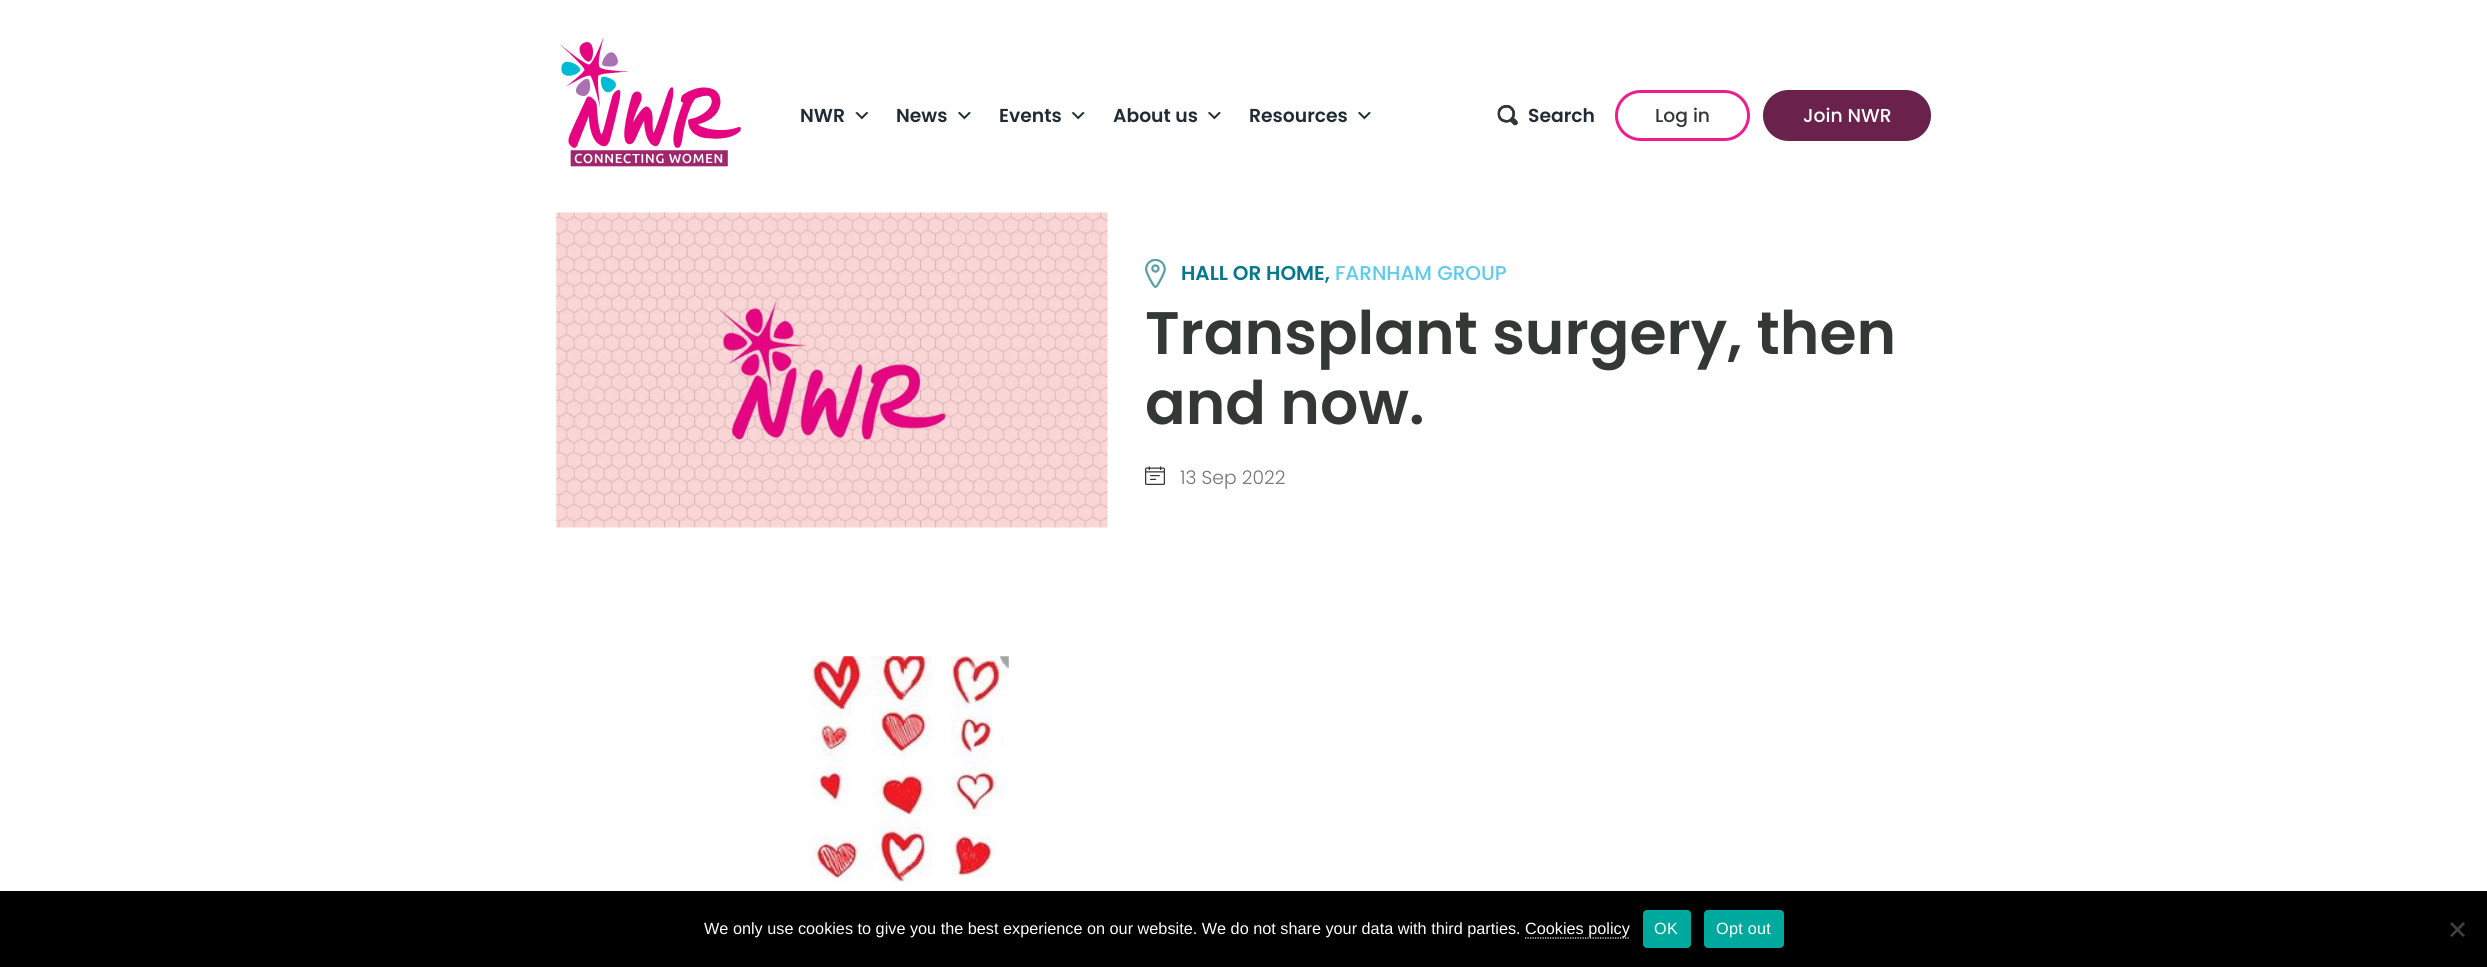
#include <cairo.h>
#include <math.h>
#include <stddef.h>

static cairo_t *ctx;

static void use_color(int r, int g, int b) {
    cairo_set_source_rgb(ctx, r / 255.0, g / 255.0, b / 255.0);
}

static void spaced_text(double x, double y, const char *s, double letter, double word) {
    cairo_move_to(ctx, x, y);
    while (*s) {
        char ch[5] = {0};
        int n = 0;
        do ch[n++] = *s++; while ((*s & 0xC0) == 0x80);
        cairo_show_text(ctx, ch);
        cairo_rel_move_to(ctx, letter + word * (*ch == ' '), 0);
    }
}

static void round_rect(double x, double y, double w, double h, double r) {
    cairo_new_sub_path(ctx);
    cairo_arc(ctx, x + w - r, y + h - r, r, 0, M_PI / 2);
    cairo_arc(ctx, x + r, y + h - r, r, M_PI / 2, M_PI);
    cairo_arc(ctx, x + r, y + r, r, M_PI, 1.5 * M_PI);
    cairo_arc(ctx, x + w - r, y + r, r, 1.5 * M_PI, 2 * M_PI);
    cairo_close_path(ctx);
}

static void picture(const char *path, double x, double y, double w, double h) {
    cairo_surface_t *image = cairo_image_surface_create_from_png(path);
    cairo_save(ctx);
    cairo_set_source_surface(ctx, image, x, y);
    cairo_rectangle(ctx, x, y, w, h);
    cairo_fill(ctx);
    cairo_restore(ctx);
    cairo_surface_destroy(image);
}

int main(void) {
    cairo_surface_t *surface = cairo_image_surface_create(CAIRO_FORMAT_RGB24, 2487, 967);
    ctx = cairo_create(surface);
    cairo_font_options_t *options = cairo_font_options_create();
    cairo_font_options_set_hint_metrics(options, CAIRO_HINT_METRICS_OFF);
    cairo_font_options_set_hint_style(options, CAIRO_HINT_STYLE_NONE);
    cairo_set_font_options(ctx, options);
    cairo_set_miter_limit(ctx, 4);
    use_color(255, 255, 255);
    cairo_paint(ctx);
    picture("img1.png", 560, 37, 181, 130);
    cairo_select_font_face(ctx, "Poppins SemiBold", CAIRO_FONT_SLANT_NORMAL, CAIRO_FONT_WEIGHT_NORMAL);
    cairo_set_font_size(ctx, 18.75);
    use_color(33, 43, 54);
    cairo_move_to(ctx, 800, 122);
    cairo_show_text(ctx, "NWR");
    picture("img2.png", 855, 112, 14, 8);
    cairo_move_to(ctx, 896, 122);
    cairo_show_text(ctx, "News");
    picture("img3.png", 957, 112, 14, 8);
    cairo_move_to(ctx, 999, 122);
    cairo_show_text(ctx, "Events");
    picture("img4.png", 1071, 112, 14, 8);
    cairo_move_to(ctx, 1113, 122);
    cairo_show_text(ctx, "About us");
    picture("img3.png", 1207, 112, 14, 8);
    cairo_move_to(ctx, 1249, 122);
    cairo_show_text(ctx, "Resources");
    picture("img3.png", 1357, 112, 14, 8);
    picture("img5.png", 1497, 105, 21, 21);
    cairo_move_to(ctx, 1528, 122);
    cairo_show_text(ctx, "Search");
    round_rect(1616.5, 91.5, 132, 48, 24);
    use_color(237, 28, 143);
    cairo_set_line_width(ctx, 3);
    cairo_stroke(ctx);
    cairo_select_font_face(ctx, "Poppins Medium", CAIRO_FONT_SLANT_NORMAL, CAIRO_FONT_WEIGHT_NORMAL);
    use_color(51, 56, 52);
    cairo_move_to(ctx, 1655, 122);
    cairo_show_text(ctx, "Log in");
    use_color(106, 34, 76);
    round_rect(1764.5, 91.5, 165, 48, 24);
    cairo_fill_preserve(ctx);
    cairo_stroke(ctx);
    use_color(255, 255, 255);
    cairo_move_to(ctx, 1803, 122);
    cairo_show_text(ctx, "Join NWR");
    picture("img6.png", 556, 212, 552, 316);
    picture("img7.png", 1145, 259, 21, 30);
    cairo_select_font_face(ctx, "Poppins SemiBold", CAIRO_FONT_SLANT_NORMAL, CAIRO_FONT_WEIGHT_NORMAL);
    cairo_set_font_size(ctx, 20);
    use_color(6, 120, 140);
    cairo_move_to(ctx, 1181, 280);
    cairo_show_text(ctx, "HALL OR HOME,");
    cairo_select_font_face(ctx, "Poppins Medium", CAIRO_FONT_SLANT_NORMAL, CAIRO_FONT_WEIGHT_NORMAL);
    use_color(93, 203, 235);
    cairo_move_to(ctx, 1335, 280);
    cairo_show_text(ctx, "FARNHAM GROUP");
    cairo_select_font_face(ctx, "Poppins SemiBold", CAIRO_FONT_SLANT_NORMAL, CAIRO_FONT_WEIGHT_NORMAL);
    cairo_set_font_size(ctx, 60);
    use_color(51, 56, 52);
    cairo_move_to(ctx, 1145, 354);
    cairo_show_text(ctx, "Transplant surgery, then");
    cairo_move_to(ctx, 1145, 424);
    cairo_show_text(ctx, "and now.");
    picture("img8.png", 1145, 466, 20, 19);
    cairo_select_font_face(ctx, "Poppins Light", CAIRO_FONT_SLANT_NORMAL, CAIRO_FONT_WEIGHT_NORMAL);
    cairo_set_font_size(ctx, 18.75);
    use_color(112, 116, 113);
    cairo_move_to(ctx, 1180, 484);
    cairo_show_text(ctx, "13 Sep 2022");
    picture("img9.png", 810, 656, 199, 226);
    use_color(0, 0, 0);
    cairo_rectangle(ctx, 0, 891, 2487, 76);
    cairo_fill(ctx);
    cairo_select_font_face(ctx, "Liberation Sans", CAIRO_FONT_SLANT_NORMAL, CAIRO_FONT_WEIGHT_NORMAL);
    cairo_set_font_size(ctx, 16.25);
    use_color(255, 255, 255);
    cairo_move_to(ctx, 704, 934);
    cairo_show_text(ctx, "We only use cookies to give you the best experience on our website. We do not share your data with third parties.");
    cairo_new_path(ctx);
    cairo_move_to(ctx, 1525, 938);
    cairo_line_to(ctx, 1630, 938);
    cairo_set_line_width(ctx, 1.2);
    cairo_set_dash(ctx, (double[]){1.25, 1.25}, 2, 0);
    cairo_stroke(ctx);
    cairo_move_to(ctx, 1525, 934);
    cairo_show_text(ctx, "Cookies policy");
    use_color(0, 169, 157);
    round_rect(1643, 910, 48, 38, 4);
    cairo_fill(ctx);
    use_color(255, 255, 255);
    spaced_text(1654, 934, "OK", 0.25, 0);
    use_color(0, 169, 157);
    round_rect(1704, 910, 80, 38, 4);
    cairo_fill(ctx);
    use_color(255, 255, 255);
    spaced_text(1716, 934, "Opt out", 0.25, 0);
    use_color(64, 64, 64);
    cairo_new_path(ctx);
    cairo_move_to(ctx, 2463, 922);
    cairo_line_to(ctx, 2465, 924);
    cairo_line_to(ctx, 2452, 937);
    cairo_line_to(ctx, 2450, 935.5);
    cairo_close_path(ctx);
    cairo_fill(ctx);
    cairo_new_path(ctx);
    cairo_move_to(ctx, 2450, 924);
    cairo_line_to(ctx, 2452, 922);
    cairo_line_to(ctx, 2465, 935.5);
    cairo_line_to(ctx, 2463, 937);
    cairo_close_path(ctx);
    cairo_fill(ctx);
    cairo_surface_write_to_png(surface, "result.png");
    cairo_font_options_destroy(options);
    cairo_destroy(ctx);
    cairo_surface_destroy(surface);
    return 0;
}
